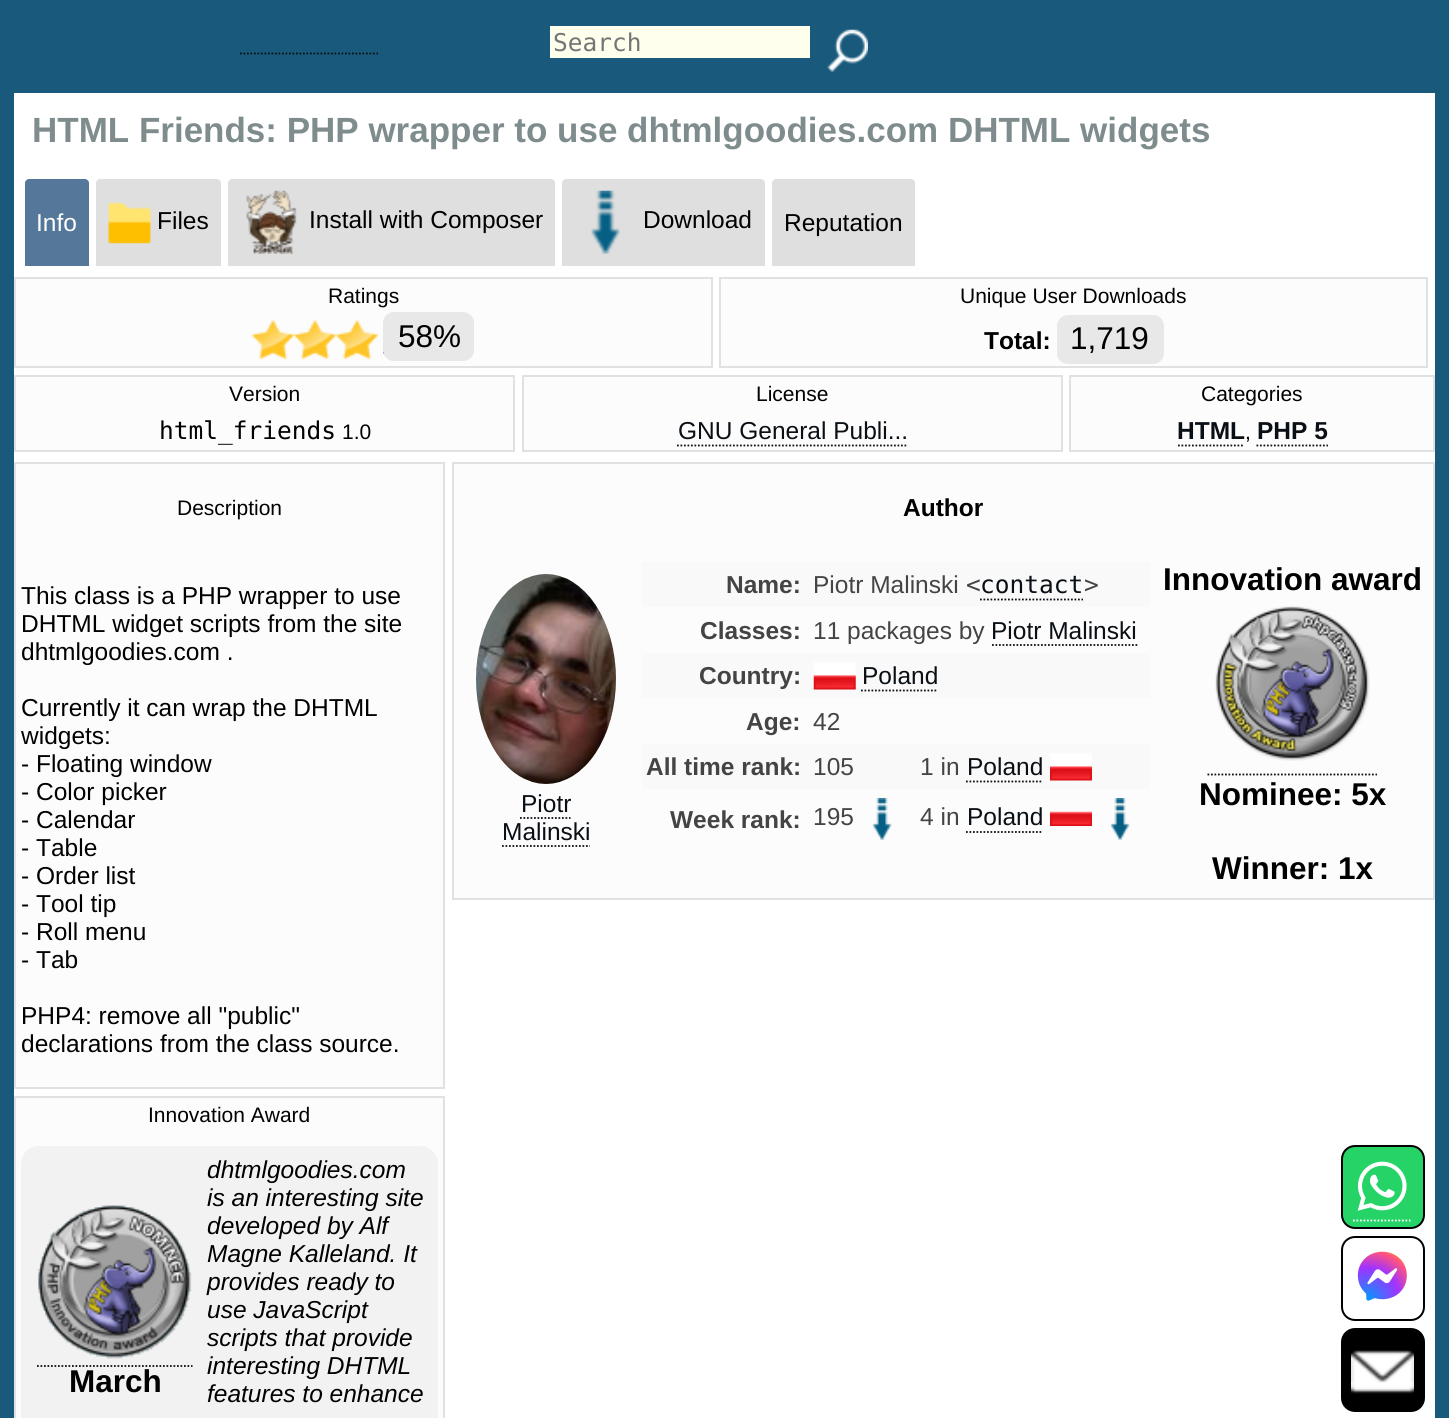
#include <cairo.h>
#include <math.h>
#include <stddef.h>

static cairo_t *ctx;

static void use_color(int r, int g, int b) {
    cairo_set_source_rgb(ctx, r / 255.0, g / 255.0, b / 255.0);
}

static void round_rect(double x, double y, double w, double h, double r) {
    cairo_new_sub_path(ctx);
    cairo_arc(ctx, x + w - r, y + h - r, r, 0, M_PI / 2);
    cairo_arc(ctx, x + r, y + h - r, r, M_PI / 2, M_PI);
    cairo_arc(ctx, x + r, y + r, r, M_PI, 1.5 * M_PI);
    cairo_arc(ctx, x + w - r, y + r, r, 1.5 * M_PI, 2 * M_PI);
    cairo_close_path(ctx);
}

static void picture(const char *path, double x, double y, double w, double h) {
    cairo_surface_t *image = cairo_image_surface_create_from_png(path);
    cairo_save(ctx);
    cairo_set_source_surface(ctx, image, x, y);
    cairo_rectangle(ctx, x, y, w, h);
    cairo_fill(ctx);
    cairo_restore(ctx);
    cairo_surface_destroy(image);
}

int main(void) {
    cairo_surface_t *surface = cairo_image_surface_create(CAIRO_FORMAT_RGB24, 1449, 1418);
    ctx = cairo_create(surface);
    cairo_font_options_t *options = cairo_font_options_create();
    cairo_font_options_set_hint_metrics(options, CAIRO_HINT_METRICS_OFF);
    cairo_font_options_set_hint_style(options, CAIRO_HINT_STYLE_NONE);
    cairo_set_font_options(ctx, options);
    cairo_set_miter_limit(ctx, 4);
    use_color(25, 89, 124);
    cairo_paint(ctx);
    use_color(255, 255, 255);
    cairo_rectangle(ctx, 14, 93, 1421, 1325);
    cairo_fill(ctx);
    use_color(255, 255, 238);
    cairo_rectangle(ctx, 550, 26, 260, 32);
    cairo_fill(ctx);
    cairo_select_font_face(ctx, "DejaVu Sans Mono", CAIRO_FONT_SLANT_NORMAL, CAIRO_FONT_WEIGHT_NORMAL);
    cairo_set_font_size(ctx, 24.5);
    use_color(117, 117, 117);
    cairo_move_to(ctx, 553, 51);
    cairo_show_text(ctx, "Search");
    picture("img1.png", 827, 29, 41, 43);
    cairo_new_path(ctx);
    cairo_move_to(ctx, 240, 53.5);
    cairo_line_to(ctx, 378, 53.5);
    use_color(9, 15, 21);
    cairo_set_line_width(ctx, 1.8);
    cairo_set_dash(ctx, (double[]){1.75, 1.75}, 2, 0);
    cairo_stroke(ctx);
    cairo_select_font_face(ctx, "Liberation Sans", CAIRO_FONT_SLANT_NORMAL, CAIRO_FONT_WEIGHT_BOLD);
    cairo_set_font_size(ctx, 35);
    use_color(127, 140, 141);
    cairo_move_to(ctx, 32, 142);
    cairo_show_text(ctx, "HTML Friends: PHP wrapper to use dhtmlgoodies.com DHTML widgets");
    use_color(85, 119, 153);
    cairo_new_path(ctx);
    cairo_move_to(ctx, 29, 179);
    cairo_line_to(ctx, 85, 179);
    cairo_curve_to(ctx, 87, 179, 89, 181, 89, 183);
    cairo_line_to(ctx, 89, 266);
    cairo_line_to(ctx, 25, 266);
    cairo_line_to(ctx, 25, 183);
    cairo_curve_to(ctx, 25, 181, 27, 179, 29, 179);
    cairo_close_path(ctx);
    cairo_fill(ctx);
    cairo_select_font_face(ctx, "Liberation Sans", CAIRO_FONT_SLANT_NORMAL, CAIRO_FONT_WEIGHT_NORMAL);
    cairo_set_font_size(ctx, 24.5);
    use_color(255, 255, 255);
    cairo_move_to(ctx, 36, 231);
    cairo_show_text(ctx, "Info");
    use_color(223, 223, 223);
    cairo_new_path(ctx);
    cairo_move_to(ctx, 100, 179);
    cairo_line_to(ctx, 217, 179);
    cairo_curve_to(ctx, 219, 179, 221, 181, 221, 183);
    cairo_line_to(ctx, 221, 266);
    cairo_line_to(ctx, 96, 266);
    cairo_line_to(ctx, 96, 183);
    cairo_curve_to(ctx, 96, 181, 98, 179, 100, 179);
    cairo_close_path(ctx);
    cairo_fill(ctx);
    picture("img2.png", 108, 202, 43, 42);
    use_color(0, 0, 0);
    cairo_move_to(ctx, 157, 229);
    cairo_show_text(ctx, "Files");
    use_color(223, 223, 223);
    cairo_new_path(ctx);
    cairo_move_to(ctx, 232, 179);
    cairo_line_to(ctx, 551, 179);
    cairo_curve_to(ctx, 553, 179, 555, 181, 555, 183);
    cairo_line_to(ctx, 555, 266);
    cairo_line_to(ctx, 228, 266);
    cairo_line_to(ctx, 228, 183);
    cairo_curve_to(ctx, 228, 181, 230, 179, 232, 179);
    cairo_close_path(ctx);
    cairo_fill(ctx);
    picture("img3.png", 246, 190, 51, 64);
    use_color(0, 0, 0);
    cairo_move_to(ctx, 309, 228);
    cairo_show_text(ctx, "Install with Composer");
    use_color(223, 223, 223);
    cairo_new_path(ctx);
    cairo_move_to(ctx, 566, 179);
    cairo_line_to(ctx, 761, 179);
    cairo_curve_to(ctx, 763, 179, 765, 181, 765, 183);
    cairo_line_to(ctx, 765, 266);
    cairo_line_to(ctx, 562, 266);
    cairo_line_to(ctx, 562, 183);
    cairo_curve_to(ctx, 562, 181, 564, 179, 566, 179);
    cairo_close_path(ctx);
    cairo_fill(ctx);
    picture("img4.png", 591, 190, 29, 64);
    use_color(0, 0, 0);
    cairo_move_to(ctx, 643, 228);
    cairo_show_text(ctx, "Download");
    use_color(223, 223, 223);
    cairo_new_path(ctx);
    cairo_move_to(ctx, 776, 179);
    cairo_line_to(ctx, 911, 179);
    cairo_curve_to(ctx, 913, 179, 915, 181, 915, 183);
    cairo_line_to(ctx, 915, 266);
    cairo_line_to(ctx, 772, 266);
    cairo_line_to(ctx, 772, 183);
    cairo_curve_to(ctx, 772, 181, 774, 179, 776, 179);
    cairo_close_path(ctx);
    cairo_fill(ctx);
    use_color(0, 0, 0);
    cairo_move_to(ctx, 784, 231);
    cairo_show_text(ctx, "Reputation");
    use_color(252, 252, 252);
    cairo_rectangle(ctx, 16, 279, 695, 87);
    cairo_fill(ctx);
    use_color(225, 225, 225);
    cairo_rectangle(ctx, 14, 277, 698, 2);
    cairo_fill(ctx);
    cairo_rectangle(ctx, 711, 277, 2, 91);
    cairo_fill(ctx);
    cairo_rectangle(ctx, 14, 277, 2, 36);
    cairo_fill(ctx);
    cairo_set_font_size(ctx, 21);
    use_color(0, 0, 0);
    cairo_move_to(ctx, 328, 303);
    cairo_show_text(ctx, "Ratings");
    use_color(252, 252, 252);
    cairo_rectangle(ctx, 721, 279, 705, 87);
    cairo_fill(ctx);
    use_color(225, 225, 225);
    cairo_rectangle(ctx, 719, 277, 709, 2);
    cairo_fill(ctx);
    cairo_rectangle(ctx, 1426, 277, 2, 91);
    cairo_fill(ctx);
    cairo_rectangle(ctx, 719, 277, 2, 36);
    cairo_fill(ctx);
    use_color(0, 0, 0);
    cairo_move_to(ctx, 960, 303);
    cairo_show_text(ctx, "Unique User Downloads");
    use_color(225, 225, 225);
    cairo_rectangle(ctx, 14, 366, 698, 2);
    cairo_fill(ctx);
    cairo_rectangle(ctx, 14, 313, 2, 55);
    cairo_fill(ctx);
    picture("img5.png", 252, 320, 42, 40);
    picture("img5.png", 294, 320, 42, 40);
    picture("img5.png", 336, 320, 42, 40);
    cairo_new_path(ctx);
    cairo_move_to(ctx, 383, 352.5);
    cairo_line_to(ctx, 474, 352.5);
    use_color(38, 57, 77);
    cairo_stroke(ctx);
    use_color(232, 232, 232);
    round_rect(383, 312, 91, 49, 11);
    cairo_fill(ctx);
    cairo_set_font_size(ctx, 31.5);
    use_color(0, 0, 0);
    cairo_move_to(ctx, 398, 347);
    cairo_show_text(ctx, "58%");
    use_color(225, 225, 225);
    cairo_rectangle(ctx, 719, 366, 709, 2);
    cairo_fill(ctx);
    cairo_rectangle(ctx, 719, 313, 2, 55);
    cairo_fill(ctx);
    cairo_select_font_face(ctx, "Liberation Sans", CAIRO_FONT_SLANT_NORMAL, CAIRO_FONT_WEIGHT_BOLD);
    cairo_set_font_size(ctx, 24.5);
    use_color(0, 0, 0);
    cairo_move_to(ctx, 984, 349);
    cairo_show_text(ctx, "Total:");
    use_color(232, 232, 232);
    round_rect(1057, 315, 107, 49, 11);
    cairo_fill(ctx);
    cairo_select_font_face(ctx, "Liberation Sans", CAIRO_FONT_SLANT_NORMAL, CAIRO_FONT_WEIGHT_NORMAL);
    cairo_set_font_size(ctx, 31.5);
    use_color(0, 0, 0);
    cairo_move_to(ctx, 1070, 349);
    cairo_show_text(ctx, "1,719");
    use_color(252, 252, 252);
    cairo_rectangle(ctx, 16, 377, 497, 73);
    cairo_fill(ctx);
    use_color(225, 225, 225);
    cairo_rectangle(ctx, 14, 375, 501, 2);
    cairo_fill(ctx);
    cairo_rectangle(ctx, 513, 375, 2, 77);
    cairo_fill(ctx);
    cairo_rectangle(ctx, 14, 375, 2, 36);
    cairo_fill(ctx);
    cairo_set_font_size(ctx, 21);
    use_color(0, 0, 0);
    cairo_move_to(ctx, 229, 401);
    cairo_show_text(ctx, "Version");
    use_color(252, 252, 252);
    cairo_rectangle(ctx, 524, 377, 537, 73);
    cairo_fill(ctx);
    use_color(225, 225, 225);
    cairo_rectangle(ctx, 522, 375, 540, 2);
    cairo_fill(ctx);
    cairo_rectangle(ctx, 1061, 375, 2, 77);
    cairo_fill(ctx);
    cairo_rectangle(ctx, 522, 375, 2, 36);
    cairo_fill(ctx);
    use_color(0, 0, 0);
    cairo_move_to(ctx, 756, 401);
    cairo_show_text(ctx, "License");
    use_color(252, 252, 252);
    cairo_rectangle(ctx, 1071, 377, 362, 73);
    cairo_fill(ctx);
    use_color(225, 225, 225);
    cairo_rectangle(ctx, 1069, 375, 366, 2);
    cairo_fill(ctx);
    cairo_rectangle(ctx, 1433, 375, 2, 77);
    cairo_fill(ctx);
    cairo_rectangle(ctx, 1069, 375, 2, 36);
    cairo_fill(ctx);
    use_color(0, 0, 0);
    cairo_move_to(ctx, 1201, 401);
    cairo_show_text(ctx, "Categories");
    use_color(225, 225, 225);
    cairo_rectangle(ctx, 14, 450, 501, 2);
    cairo_fill(ctx);
    cairo_rectangle(ctx, 14, 411, 2, 41);
    cairo_fill(ctx);
    cairo_select_font_face(ctx, "DejaVu Sans Mono", CAIRO_FONT_SLANT_NORMAL, CAIRO_FONT_WEIGHT_NORMAL);
    cairo_set_font_size(ctx, 24.5);
    use_color(0, 0, 0);
    cairo_move_to(ctx, 159, 439);
    cairo_show_text(ctx, "html_friends");
    cairo_select_font_face(ctx, "Liberation Sans", CAIRO_FONT_SLANT_NORMAL, CAIRO_FONT_WEIGHT_NORMAL);
    cairo_set_font_size(ctx, 21);
    cairo_move_to(ctx, 342, 439);
    cairo_show_text(ctx, "1.0");
    use_color(225, 225, 225);
    cairo_rectangle(ctx, 522, 450, 540, 2);
    cairo_fill(ctx);
    cairo_rectangle(ctx, 522, 411, 2, 41);
    cairo_fill(ctx);
    cairo_set_font_size(ctx, 24.5);
    use_color(9, 15, 21);
    cairo_move_to(ctx, 678, 439);
    cairo_show_text(ctx, "GNU General Publi...");
    cairo_new_path(ctx);
    cairo_move_to(ctx, 677, 445.5);
    cairo_line_to(ctx, 908, 445.5);
    cairo_stroke(ctx);
    use_color(225, 225, 225);
    cairo_rectangle(ctx, 1069, 450, 366, 2);
    cairo_fill(ctx);
    cairo_rectangle(ctx, 1069, 411, 2, 41);
    cairo_fill(ctx);
    cairo_select_font_face(ctx, "Liberation Sans", CAIRO_FONT_SLANT_NORMAL, CAIRO_FONT_WEIGHT_BOLD);
    use_color(9, 15, 21);
    cairo_move_to(ctx, 1177, 439);
    cairo_show_text(ctx, "HTML");
    cairo_new_path(ctx);
    cairo_move_to(ctx, 1178, 445.5);
    cairo_line_to(ctx, 1244, 445.5);
    cairo_stroke(ctx);
    cairo_select_font_face(ctx, "Liberation Sans", CAIRO_FONT_SLANT_NORMAL, CAIRO_FONT_WEIGHT_NORMAL);
    cairo_set_font_size(ctx, 21);
    use_color(0, 0, 0);
    cairo_move_to(ctx, 1245, 439);
    cairo_show_text(ctx, ",");
    cairo_select_font_face(ctx, "Liberation Sans", CAIRO_FONT_SLANT_NORMAL, CAIRO_FONT_WEIGHT_BOLD);
    cairo_set_font_size(ctx, 24.5);
    use_color(9, 15, 21);
    cairo_move_to(ctx, 1257, 439);
    cairo_show_text(ctx, "PHP 5");
    cairo_new_path(ctx);
    cairo_move_to(ctx, 1256.5, 445.5);
    cairo_line_to(ctx, 1328, 445.5);
    cairo_stroke(ctx);
    use_color(252, 252, 252);
    cairo_rectangle(ctx, 16, 464, 427, 623);
    cairo_fill(ctx);
    use_color(225, 225, 225);
    cairo_rectangle(ctx, 14, 462, 431, 2);
    cairo_fill(ctx);
    cairo_rectangle(ctx, 443, 462, 2, 627);
    cairo_fill(ctx);
    cairo_rectangle(ctx, 14, 462, 2, 89);
    cairo_fill(ctx);
    cairo_select_font_face(ctx, "Liberation Sans", CAIRO_FONT_SLANT_NORMAL, CAIRO_FONT_WEIGHT_NORMAL);
    cairo_set_font_size(ctx, 21);
    use_color(0, 0, 0);
    cairo_move_to(ctx, 177, 515);
    cairo_show_text(ctx, "Description");
    use_color(252, 252, 252);
    cairo_rectangle(ctx, 454, 464, 979, 434);
    cairo_fill(ctx);
    use_color(225, 225, 225);
    cairo_rectangle(ctx, 452, 462, 983, 2);
    cairo_fill(ctx);
    cairo_rectangle(ctx, 1433, 462, 2, 438);
    cairo_fill(ctx);
    cairo_rectangle(ctx, 452, 462, 2, 89);
    cairo_fill(ctx);
    cairo_select_font_face(ctx, "Liberation Sans", CAIRO_FONT_SLANT_NORMAL, CAIRO_FONT_WEIGHT_BOLD);
    cairo_set_font_size(ctx, 24.5);
    use_color(0, 0, 0);
    cairo_move_to(ctx, 903, 516);
    cairo_show_text(ctx, "Author");
    use_color(225, 225, 225);
    cairo_rectangle(ctx, 14, 1087, 431, 2);
    cairo_fill(ctx);
    cairo_rectangle(ctx, 14, 551, 2, 538);
    cairo_fill(ctx);
    cairo_select_font_face(ctx, "Liberation Sans", CAIRO_FONT_SLANT_NORMAL, CAIRO_FONT_WEIGHT_NORMAL);
    use_color(0, 0, 0);
    cairo_move_to(ctx, 21, 604);
    cairo_show_text(ctx, "This class is a PHP wrapper to use");
    cairo_move_to(ctx, 21, 632);
    cairo_show_text(ctx, "DHTML widget scripts from the site");
    cairo_move_to(ctx, 21, 660);
    cairo_show_text(ctx, "dhtmlgoodies.com .");
    cairo_move_to(ctx, 21, 716);
    cairo_show_text(ctx, "Currently it can wrap the DHTML");
    cairo_move_to(ctx, 21, 744);
    cairo_show_text(ctx, "widgets:");
    cairo_move_to(ctx, 21, 772);
    cairo_show_text(ctx, "- Floating window");
    cairo_move_to(ctx, 21, 800);
    cairo_show_text(ctx, "- Color picker");
    cairo_move_to(ctx, 21, 828);
    cairo_show_text(ctx, "- Calendar");
    cairo_move_to(ctx, 21, 856);
    cairo_show_text(ctx, "- Table");
    cairo_move_to(ctx, 21, 884);
    cairo_show_text(ctx, "- Order list");
    cairo_move_to(ctx, 21, 912);
    cairo_show_text(ctx, "- Tool tip");
    cairo_move_to(ctx, 21, 940);
    cairo_show_text(ctx, "- Roll menu");
    cairo_move_to(ctx, 21, 968);
    cairo_show_text(ctx, "- Tab");
    cairo_move_to(ctx, 21, 1024);
    cairo_show_text(ctx, "PHP4: remove all \"public\"");
    cairo_move_to(ctx, 21, 1052);
    cairo_show_text(ctx, "declarations from the class source.");
    use_color(252, 252, 252);
    cairo_rectangle(ctx, 16, 1098, 427, 320);
    cairo_fill(ctx);
    use_color(225, 225, 225);
    cairo_rectangle(ctx, 14, 1096, 431, 2);
    cairo_fill(ctx);
    cairo_rectangle(ctx, 443, 1096, 2, 322);
    cairo_fill(ctx);
    cairo_rectangle(ctx, 14, 1096, 2, 322);
    cairo_fill(ctx);
    cairo_set_font_size(ctx, 21);
    use_color(0, 0, 0);
    cairo_move_to(ctx, 148, 1122);
    cairo_show_text(ctx, "Innovation Award");
    use_color(242, 242, 242);
    round_rect(21, 1146, 417, 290, 18);
    cairo_fill(ctx);
    picture("img6.png", 38, 1205, 154, 154);
    cairo_new_path(ctx);
    cairo_move_to(ctx, 37, 1366);
    cairo_line_to(ctx, 192.5, 1366);
    use_color(9, 15, 21);
    cairo_stroke(ctx);
    cairo_select_font_face(ctx, "Liberation Sans", CAIRO_FONT_SLANT_NORMAL, CAIRO_FONT_WEIGHT_BOLD);
    cairo_set_font_size(ctx, 31.5);
    use_color(0, 0, 0);
    cairo_move_to(ctx, 69, 1392);
    cairo_show_text(ctx, "March");
    cairo_select_font_face(ctx, "Liberation Sans", CAIRO_FONT_SLANT_ITALIC, CAIRO_FONT_WEIGHT_NORMAL);
    cairo_set_font_size(ctx, 24.5);
    cairo_move_to(ctx, 207, 1178);
    cairo_show_text(ctx, "dhtmlgoodies.com");
    cairo_move_to(ctx, 207, 1206);
    cairo_show_text(ctx, "is an interesting site");
    cairo_move_to(ctx, 207, 1234);
    cairo_show_text(ctx, "developed by Alf");
    cairo_move_to(ctx, 207, 1262);
    cairo_show_text(ctx, "Magne Kalleland. It");
    cairo_move_to(ctx, 207, 1290);
    cairo_show_text(ctx, "provides ready to");
    cairo_move_to(ctx, 207, 1318);
    cairo_show_text(ctx, "use JavaScript");
    cairo_move_to(ctx, 207, 1346);
    cairo_show_text(ctx, "scripts that provide");
    cairo_move_to(ctx, 207, 1374);
    cairo_show_text(ctx, "interesting DHTML");
    cairo_move_to(ctx, 207, 1402);
    cairo_show_text(ctx, "features to enhance");
    use_color(225, 225, 225);
    cairo_rectangle(ctx, 452, 898, 983, 2);
    cairo_fill(ctx);
    cairo_rectangle(ctx, 452, 551, 2, 349);
    cairo_fill(ctx);
    picture("img7.png", 476, 574, 140, 210);
    cairo_select_font_face(ctx, "Liberation Sans", CAIRO_FONT_SLANT_NORMAL, CAIRO_FONT_WEIGHT_NORMAL);
    use_color(9, 15, 21);
    cairo_move_to(ctx, 521, 812);
    cairo_show_text(ctx, "Piotr");
    cairo_move_to(ctx, 502, 840);
    cairo_show_text(ctx, "Malinski");
    cairo_new_path(ctx);
    cairo_move_to(ctx, 520, 818);
    cairo_line_to(ctx, 570.5, 818);
    cairo_stroke(ctx);
    cairo_new_path(ctx);
    cairo_move_to(ctx, 502, 846);
    cairo_line_to(ctx, 590, 846);
    cairo_stroke(ctx);
    use_color(249, 249, 249);
    cairo_rectangle(ctx, 642, 562, 508, 45);
    cairo_fill(ctx);
    cairo_select_font_face(ctx, "Liberation Sans", CAIRO_FONT_SLANT_NORMAL, CAIRO_FONT_WEIGHT_BOLD);
    use_color(68, 68, 68);
    cairo_move_to(ctx, 726, 593);
    cairo_show_text(ctx, "Name:");
    cairo_select_font_face(ctx, "Liberation Sans", CAIRO_FONT_SLANT_NORMAL, CAIRO_FONT_WEIGHT_NORMAL);
    cairo_move_to(ctx, 813, 593);
    cairo_show_text(ctx, "Piotr Malinski");
    cairo_select_font_face(ctx, "DejaVu Sans Mono", CAIRO_FONT_SLANT_NORMAL, CAIRO_FONT_WEIGHT_NORMAL);
    cairo_move_to(ctx, 966, 593);
    cairo_show_text(ctx, "<");
    cairo_new_path(ctx);
    cairo_move_to(ctx, 980, 599.5);
    cairo_line_to(ctx, 1083, 599.5);
    use_color(9, 15, 21);
    cairo_stroke(ctx);
    cairo_move_to(ctx, 980, 593);
    cairo_show_text(ctx, "contact");
    use_color(68, 68, 68);
    cairo_move_to(ctx, 1084, 593);
    cairo_show_text(ctx, ">");
    cairo_select_font_face(ctx, "Liberation Sans", CAIRO_FONT_SLANT_NORMAL, CAIRO_FONT_WEIGHT_BOLD);
    cairo_move_to(ctx, 700, 639);
    cairo_show_text(ctx, "Classes:");
    cairo_select_font_face(ctx, "Liberation Sans", CAIRO_FONT_SLANT_NORMAL, CAIRO_FONT_WEIGHT_NORMAL);
    cairo_move_to(ctx, 813, 639);
    cairo_show_text(ctx, "11 packages by");
    use_color(9, 15, 21);
    cairo_move_to(ctx, 991, 639);
    cairo_show_text(ctx, "Piotr Malinski");
    cairo_new_path(ctx);
    cairo_move_to(ctx, 992, 645);
    cairo_line_to(ctx, 1137.5, 645);
    cairo_stroke(ctx);
    use_color(249, 249, 249);
    cairo_rectangle(ctx, 642, 653, 508, 45);
    cairo_fill(ctx);
    cairo_select_font_face(ctx, "Liberation Sans", CAIRO_FONT_SLANT_NORMAL, CAIRO_FONT_WEIGHT_BOLD);
    use_color(68, 68, 68);
    cairo_move_to(ctx, 699, 684);
    cairo_show_text(ctx, "Country:");
    picture("img8.png", 813, 662, 43, 28);
    cairo_select_font_face(ctx, "Liberation Sans", CAIRO_FONT_SLANT_NORMAL, CAIRO_FONT_WEIGHT_NORMAL);
    use_color(9, 15, 21);
    cairo_move_to(ctx, 862, 684);
    cairo_show_text(ctx, "Poland");
    cairo_new_path(ctx);
    cairo_move_to(ctx, 861, 690.5);
    cairo_line_to(ctx, 938, 690.5);
    cairo_stroke(ctx);
    cairo_select_font_face(ctx, "Liberation Sans", CAIRO_FONT_SLANT_NORMAL, CAIRO_FONT_WEIGHT_BOLD);
    use_color(68, 68, 68);
    cairo_move_to(ctx, 746, 730);
    cairo_show_text(ctx, "Age:");
    cairo_select_font_face(ctx, "Liberation Sans", CAIRO_FONT_SLANT_NORMAL, CAIRO_FONT_WEIGHT_NORMAL);
    cairo_move_to(ctx, 813, 730);
    cairo_show_text(ctx, "42");
    use_color(249, 249, 249);
    cairo_rectangle(ctx, 642, 744, 508, 45);
    cairo_fill(ctx);
    cairo_select_font_face(ctx, "Liberation Sans", CAIRO_FONT_SLANT_NORMAL, CAIRO_FONT_WEIGHT_BOLD);
    use_color(68, 68, 68);
    cairo_move_to(ctx, 646, 775);
    cairo_show_text(ctx, "All time rank:");
    cairo_select_font_face(ctx, "Liberation Sans", CAIRO_FONT_SLANT_NORMAL, CAIRO_FONT_WEIGHT_NORMAL);
    cairo_move_to(ctx, 813, 775);
    cairo_show_text(ctx, "105");
    cairo_move_to(ctx, 920, 775);
    cairo_show_text(ctx, "1 in");
    use_color(9, 15, 21);
    cairo_move_to(ctx, 967, 775);
    cairo_show_text(ctx, "Poland");
    cairo_new_path(ctx);
    cairo_move_to(ctx, 966, 781.5);
    cairo_line_to(ctx, 1043, 781.5);
    cairo_stroke(ctx);
    picture("img9.png", 1050, 753, 42, 28);
    cairo_select_font_face(ctx, "Liberation Sans", CAIRO_FONT_SLANT_NORMAL, CAIRO_FONT_WEIGHT_BOLD);
    use_color(68, 68, 68);
    cairo_move_to(ctx, 670, 828);
    cairo_show_text(ctx, "Week rank:");
    cairo_select_font_face(ctx, "Liberation Sans", CAIRO_FONT_SLANT_NORMAL, CAIRO_FONT_WEIGHT_NORMAL);
    cairo_move_to(ctx, 813, 825);
    cairo_show_text(ctx, "195");
    picture("img10.png", 872, 798, 20, 42);
    cairo_move_to(ctx, 920, 825);
    cairo_show_text(ctx, "4 in");
    use_color(9, 15, 21);
    cairo_move_to(ctx, 967, 825);
    cairo_show_text(ctx, "Poland");
    cairo_new_path(ctx);
    cairo_move_to(ctx, 966, 832);
    cairo_line_to(ctx, 1043, 832);
    cairo_stroke(ctx);
    picture("img11.png", 1050, 811, 42, 15);
    picture("img12.png", 1110, 798, 20, 42);
    cairo_select_font_face(ctx, "Liberation Sans", CAIRO_FONT_SLANT_NORMAL, CAIRO_FONT_WEIGHT_BOLD);
    cairo_set_font_size(ctx, 31.5);
    use_color(0, 0, 0);
    cairo_move_to(ctx, 1163, 590);
    cairo_show_text(ctx, "Innovation award");
    picture("img13.png", 1215, 606, 155, 155);
    cairo_new_path(ctx);
    cairo_move_to(ctx, 1207.5, 774.5);
    cairo_line_to(ctx, 1377, 774.5);
    use_color(9, 15, 21);
    cairo_stroke(ctx);
    use_color(0, 0, 0);
    cairo_move_to(ctx, 1199, 805);
    cairo_show_text(ctx, "Nominee: 5x");
    cairo_move_to(ctx, 1212, 879);
    cairo_show_text(ctx, "Winner: 1x");
    use_color(37, 211, 102);
    round_rect(1342, 1146, 82, 82, 13);
    cairo_fill_preserve(ctx);
    use_color(0, 0, 0);
    cairo_set_line_width(ctx, 2);
    cairo_set_dash(ctx, NULL, 0, 0);
    cairo_stroke(ctx);
    picture("img14.png", 1357, 1161, 50, 50);
    cairo_new_path(ctx);
    cairo_move_to(ctx, 1353, 1220.5);
    cairo_line_to(ctx, 1410.5, 1220.5);
    use_color(255, 255, 255);
    cairo_set_line_width(ctx, 1.8);
    cairo_set_dash(ctx, (double[]){1.75, 1.75}, 2, 0);
    cairo_stroke(ctx);
    round_rect(1342, 1237, 82, 83, 13);
    use_color(0, 0, 0);
    cairo_set_line_width(ctx, 2);
    cairo_set_dash(ctx, NULL, 0, 0);
    cairo_stroke(ctx);
    picture("img15.png", 1357, 1251, 50, 50);
    round_rect(1342, 1329, 82, 82, 13);
    cairo_fill_preserve(ctx);
    cairo_stroke(ctx);
    cairo_new_path(ctx);
    cairo_move_to(ctx, 1351, 1383.5);
    cairo_line_to(ctx, 1414, 1383.5);
    use_color(255, 255, 255);
    cairo_set_line_width(ctx, 1.8);
    cairo_set_dash(ctx, (double[]){1.75, 1.75}, 2, 0);
    cairo_stroke(ctx);
    picture("img16.png", 1351, 1350, 63, 44);
    cairo_surface_write_to_png(surface, "result.png");
    cairo_font_options_destroy(options);
    cairo_destroy(ctx);
    cairo_surface_destroy(surface);
    return 0;
}
